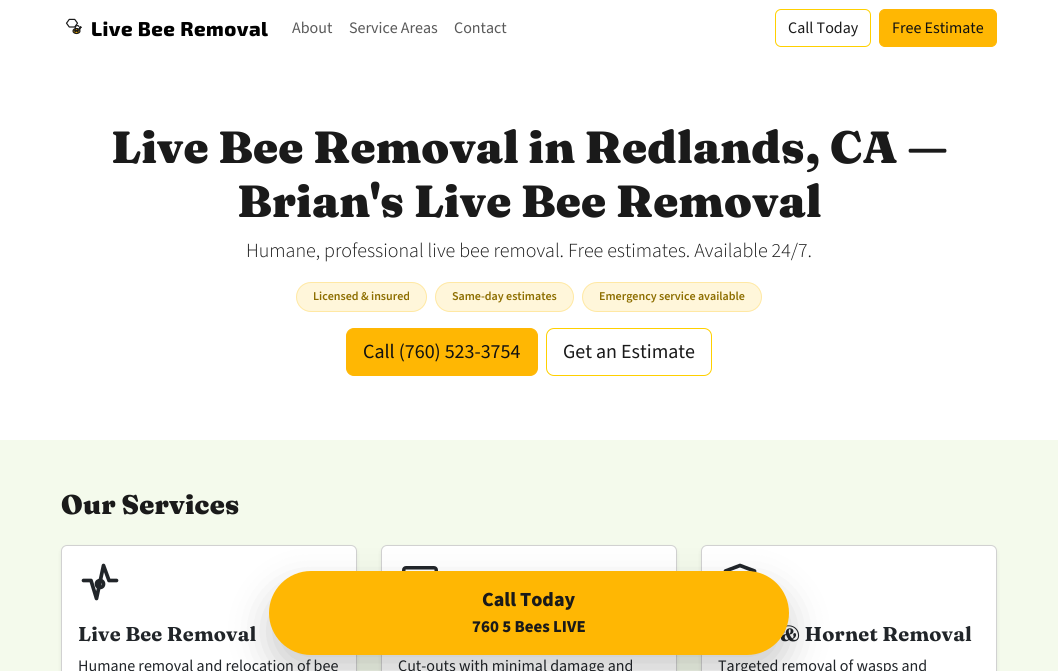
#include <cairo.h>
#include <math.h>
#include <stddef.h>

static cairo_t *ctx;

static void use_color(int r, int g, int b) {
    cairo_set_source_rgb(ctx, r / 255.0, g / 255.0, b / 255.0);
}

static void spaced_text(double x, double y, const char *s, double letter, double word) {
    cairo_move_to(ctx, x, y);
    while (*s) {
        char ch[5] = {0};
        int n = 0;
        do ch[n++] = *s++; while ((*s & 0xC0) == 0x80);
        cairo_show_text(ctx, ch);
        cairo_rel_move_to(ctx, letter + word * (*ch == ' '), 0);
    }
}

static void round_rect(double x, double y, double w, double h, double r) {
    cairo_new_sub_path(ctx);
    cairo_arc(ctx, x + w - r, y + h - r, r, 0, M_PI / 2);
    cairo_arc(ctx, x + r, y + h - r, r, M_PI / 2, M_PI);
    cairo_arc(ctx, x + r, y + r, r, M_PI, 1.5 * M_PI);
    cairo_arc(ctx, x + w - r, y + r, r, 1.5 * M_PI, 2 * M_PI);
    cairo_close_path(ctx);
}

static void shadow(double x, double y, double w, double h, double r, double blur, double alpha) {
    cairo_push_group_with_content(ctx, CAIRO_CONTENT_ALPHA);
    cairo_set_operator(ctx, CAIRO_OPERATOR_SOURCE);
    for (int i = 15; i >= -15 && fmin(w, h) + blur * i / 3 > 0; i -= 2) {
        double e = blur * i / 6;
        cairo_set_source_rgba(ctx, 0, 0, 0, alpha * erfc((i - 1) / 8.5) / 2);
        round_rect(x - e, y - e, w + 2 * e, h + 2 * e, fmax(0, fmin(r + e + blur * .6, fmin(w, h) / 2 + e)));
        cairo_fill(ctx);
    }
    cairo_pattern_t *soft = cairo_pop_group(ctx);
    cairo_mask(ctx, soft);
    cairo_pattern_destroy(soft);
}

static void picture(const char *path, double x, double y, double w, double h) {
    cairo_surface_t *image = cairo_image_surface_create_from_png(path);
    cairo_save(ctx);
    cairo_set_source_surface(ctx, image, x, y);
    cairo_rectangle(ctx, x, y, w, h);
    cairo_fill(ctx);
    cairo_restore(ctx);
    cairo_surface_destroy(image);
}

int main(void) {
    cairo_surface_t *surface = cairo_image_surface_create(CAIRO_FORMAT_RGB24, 1058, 671);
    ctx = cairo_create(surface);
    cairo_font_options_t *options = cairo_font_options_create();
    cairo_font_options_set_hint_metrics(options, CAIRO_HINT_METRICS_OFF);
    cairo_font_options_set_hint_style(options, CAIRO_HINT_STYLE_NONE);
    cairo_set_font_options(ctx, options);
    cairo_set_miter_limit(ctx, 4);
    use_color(255, 255, 255);
    cairo_paint(ctx);
    picture("img1.png", 65, 18, 17, 17);
    cairo_select_font_face(ctx, "Exo 2 ExtraBold", CAIRO_FONT_SLANT_NORMAL, CAIRO_FONT_WEIGHT_NORMAL);
    cairo_set_font_size(ctx, 20);
    use_color(0, 0, 0);
    spaced_text(91, 36, "Live Bee Removal", 0.5, 0);
    cairo_select_font_face(ctx, "Source Sans 3", CAIRO_FONT_SLANT_NORMAL, CAIRO_FONT_WEIGHT_NORMAL);
    cairo_set_font_size(ctx, 16);
    use_color(89, 89, 89);
    cairo_move_to(ctx, 292, 33);
    cairo_show_text(ctx, "About");
    cairo_move_to(ctx, 349, 33);
    cairo_show_text(ctx, "Service Areas");
    cairo_move_to(ctx, 454, 33);
    cairo_show_text(ctx, "Contact");
    round_rect(775.5, 9.5, 95, 37, 5.5);
    use_color(255, 208, 0);
    cairo_set_line_width(ctx, 1);
    cairo_stroke(ctx);
    use_color(26, 26, 26);
    cairo_move_to(ctx, 788, 33);
    cairo_show_text(ctx, "Call Today");
    use_color(255, 183, 3);
    round_rect(879.5, 9.5, 117, 37, 5.5);
    cairo_fill_preserve(ctx);
    cairo_stroke(ctx);
    use_color(17, 17, 17);
    cairo_move_to(ctx, 892, 33);
    cairo_show_text(ctx, "Free Estimate");
    cairo_select_font_face(ctx, "Fraunces Black", CAIRO_FONT_SLANT_NORMAL, CAIRO_FONT_WEIGHT_NORMAL);
    cairo_set_font_size(ctx, 45);
    use_color(26, 26, 26);
    spaced_text(111, 163, "Live Bee Removal in Redlands, CA —", 0.2, 0);
    spaced_text(237, 217, "Brian's Live Bee Removal", 0.2, 0);
    cairo_select_font_face(ctx, "Source Sans 3 Light", CAIRO_FONT_SLANT_NORMAL, CAIRO_FONT_WEIGHT_NORMAL);
    cairo_set_font_size(ctx, 20);
    cairo_move_to(ctx, 246, 257);
    cairo_show_text(ctx, "Humane, professional live bee removal. Free estimates. Available 24/7.");
    use_color(255, 246, 218);
    round_rect(296, 282, 131, 30, 15);
    cairo_fill(ctx);
    round_rect(296.5, 282.5, 130, 29, 14.5);
    cairo_set_source_rgba(ctx, 1, 0.757, 0.027, 0.25);
    cairo_stroke(ctx);
    cairo_select_font_face(ctx, "Source Sans 3 SemiBold", CAIRO_FONT_SLANT_NORMAL, CAIRO_FONT_WEIGHT_NORMAL);
    cairo_set_font_size(ctx, 12);
    use_color(141, 110, 0);
    cairo_move_to(ctx, 313, 300);
    cairo_show_text(ctx, "Licensed & insured");
    use_color(255, 246, 218);
    round_rect(435, 282, 139, 30, 15);
    cairo_fill(ctx);
    round_rect(435.5, 282.5, 138, 29, 14.5);
    cairo_set_source_rgba(ctx, 1, 0.757, 0.027, 0.25);
    cairo_stroke(ctx);
    use_color(141, 110, 0);
    cairo_move_to(ctx, 452, 300);
    cairo_show_text(ctx, "Same-day estimates");
    use_color(255, 246, 218);
    round_rect(582, 282, 180, 30, 15);
    cairo_fill(ctx);
    round_rect(582.5, 282.5, 179, 29, 14.5);
    cairo_set_source_rgba(ctx, 1, 0.757, 0.027, 0.25);
    cairo_stroke(ctx);
    use_color(141, 110, 0);
    cairo_move_to(ctx, 599, 300);
    cairo_show_text(ctx, "Emergency service available");
    use_color(255, 183, 3);
    round_rect(346.5, 328.5, 191, 47, 7.5);
    cairo_fill_preserve(ctx);
    cairo_stroke(ctx);
    cairo_select_font_face(ctx, "Source Sans 3", CAIRO_FONT_SLANT_NORMAL, CAIRO_FONT_WEIGHT_NORMAL);
    cairo_set_font_size(ctx, 20);
    use_color(17, 17, 17);
    cairo_move_to(ctx, 363, 358);
    cairo_show_text(ctx, "Call (760) 523-3754");
    round_rect(546.5, 328.5, 165, 47, 7.5);
    use_color(255, 208, 0);
    cairo_stroke(ctx);
    use_color(26, 26, 26);
    cairo_move_to(ctx, 563, 358);
    cairo_show_text(ctx, "Get an Estimate");
    use_color(244, 250, 236);
    cairo_rectangle(ctx, 0, 440, 1058, 231);
    cairo_fill(ctx);
    cairo_select_font_face(ctx, "Fraunces Black", CAIRO_FONT_SLANT_NORMAL, CAIRO_FONT_WEIGHT_NORMAL);
    cairo_set_font_size(ctx, 27);
    use_color(26, 26, 26);
    spaced_text(61, 514, "Our Services", 0.2, 0);
    use_color(0, 0, 0);
    shadow(61, 547, 296, 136, 6, 2, 0.07);
    use_color(255, 255, 255);
    round_rect(61, 545, 296, 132, 6);
    cairo_fill(ctx);
    round_rect(61.5, 545.5, 295, 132, 5.5);
    cairo_set_source_rgba(ctx, 0, 0, 0, 0.18);
    cairo_stroke(ctx);
    cairo_new_path(ctx);
    cairo_move_to(ctx, 83.5, 580.5);
    cairo_line_to(ctx, 91, 580.5);
    cairo_line_to(ctx, 96.5, 598.5);
    cairo_line_to(ctx, 103.5, 565.5);
    cairo_line_to(ctx, 109, 580.5);
    cairo_line_to(ctx, 116.5, 580.5);
    use_color(33, 37, 41);
    cairo_set_line_width(ctx, 3.7);
    cairo_set_line_cap(ctx, CAIRO_LINE_CAP_ROUND);
    cairo_set_line_join(ctx, CAIRO_LINE_JOIN_ROUND);
    cairo_stroke(ctx);
    cairo_arc(ctx, 100, 584, 3.5, 0, 2 * M_PI);
    cairo_set_line_cap(ctx, CAIRO_LINE_CAP_BUTT);
    cairo_set_line_join(ctx, CAIRO_LINE_JOIN_MITER);
    cairo_stroke(ctx);
    cairo_select_font_face(ctx, "Fraunces", CAIRO_FONT_SLANT_NORMAL, CAIRO_FONT_WEIGHT_BOLD);
    cairo_set_font_size(ctx, 20);
    spaced_text(78, 641, "Live Bee Removal", 0.2, 0);
    cairo_select_font_face(ctx, "Source Sans 3", CAIRO_FONT_SLANT_NORMAL, CAIRO_FONT_WEIGHT_NORMAL);
    cairo_set_font_size(ctx, 16);
    cairo_move_to(ctx, 78, 671);
    cairo_show_text(ctx, "Humane removal and relocation of bee");
    use_color(0, 0, 0);
    shadow(381, 547, 296, 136, 6, 2, 0.07);
    use_color(255, 255, 255);
    round_rect(381, 545, 296, 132, 6);
    cairo_fill(ctx);
    round_rect(381.5, 545.5, 295, 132, 5.5);
    cairo_set_source_rgba(ctx, 0, 0, 0, 0.18);
    cairo_set_line_width(ctx, 1);
    cairo_stroke(ctx);
    round_rect(403.75, 567.75, 32.5, 10.5, 2.25);
    use_color(33, 37, 41);
    cairo_set_line_width(ctx, 3.5);
    cairo_stroke(ctx);
    cairo_move_to(ctx, 398, 671);
    cairo_show_text(ctx, "Cut-outs with minimal damage and");
    use_color(0, 0, 0);
    shadow(701, 547, 296, 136, 6, 2, 0.07);
    use_color(255, 255, 255);
    round_rect(701, 545, 296, 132, 6);
    cairo_fill(ctx);
    round_rect(701.5, 545.5, 295, 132, 5.5);
    cairo_set_source_rgba(ctx, 0, 0, 0, 0.18);
    cairo_set_line_width(ctx, 1);
    cairo_stroke(ctx);
    cairo_new_path(ctx);
    cairo_move_to(ctx, 740, 602.5);
    cairo_curve_to(ctx, 740, 602.5, 754.5, 595, 754.5, 584);
    cairo_line_to(ctx, 754.5, 571);
    cairo_line_to(ctx, 740, 565.5);
    cairo_line_to(ctx, 725.5, 571);
    cairo_line_to(ctx, 725.5, 584);
    cairo_curve_to(ctx, 725.5, 595, 740, 602.5, 740, 602.5);
    cairo_close_path(ctx);
    use_color(33, 37, 41);
    cairo_set_line_width(ctx, 3.7);
    cairo_set_line_cap(ctx, CAIRO_LINE_CAP_ROUND);
    cairo_set_line_join(ctx, CAIRO_LINE_JOIN_ROUND);
    cairo_stroke(ctx);
    cairo_select_font_face(ctx, "Fraunces", CAIRO_FONT_SLANT_NORMAL, CAIRO_FONT_WEIGHT_BOLD);
    cairo_set_font_size(ctx, 20);
    spaced_text(780, 641, "& Hornet Removal", 0.2, 0);
    cairo_select_font_face(ctx, "Source Sans 3", CAIRO_FONT_SLANT_NORMAL, CAIRO_FONT_WEIGHT_NORMAL);
    cairo_set_font_size(ctx, 16);
    cairo_move_to(ctx, 718, 671);
    cairo_show_text(ctx, "Targeted removal of wasps and");
    use_color(0, 0, 0);
    shadow(269, 589, 520, 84, 42, 19, 0.2);
    use_color(255, 183, 3);
    round_rect(269, 571, 520, 84, 42);
    cairo_fill(ctx);
    cairo_select_font_face(ctx, "Source Sans 3 ExtraBold", CAIRO_FONT_SLANT_NORMAL, CAIRO_FONT_WEIGHT_NORMAL);
    cairo_set_font_size(ctx, 20);
    use_color(26, 26, 26);
    cairo_move_to(ctx, 482, 606);
    cairo_show_text(ctx, "Call Today");
    cairo_set_font_size(ctx, 16.75);
    cairo_move_to(ctx, 472, 632);
    cairo_show_text(ctx, "760 5 Bees LIVE");
    cairo_surface_write_to_png(surface, "result.png");
    cairo_font_options_destroy(options);
    cairo_destroy(ctx);
    cairo_surface_destroy(surface);
    return 0;
}
